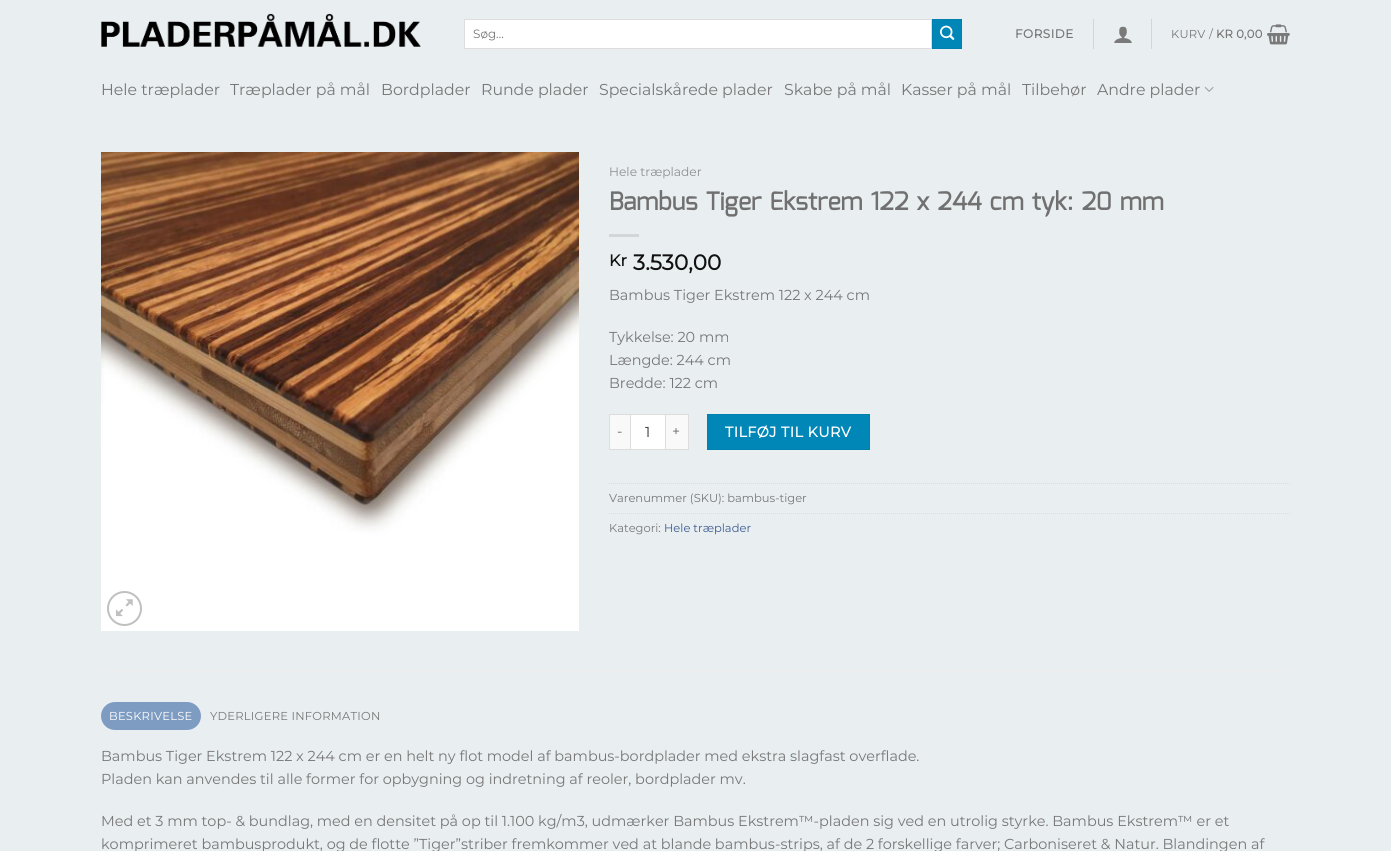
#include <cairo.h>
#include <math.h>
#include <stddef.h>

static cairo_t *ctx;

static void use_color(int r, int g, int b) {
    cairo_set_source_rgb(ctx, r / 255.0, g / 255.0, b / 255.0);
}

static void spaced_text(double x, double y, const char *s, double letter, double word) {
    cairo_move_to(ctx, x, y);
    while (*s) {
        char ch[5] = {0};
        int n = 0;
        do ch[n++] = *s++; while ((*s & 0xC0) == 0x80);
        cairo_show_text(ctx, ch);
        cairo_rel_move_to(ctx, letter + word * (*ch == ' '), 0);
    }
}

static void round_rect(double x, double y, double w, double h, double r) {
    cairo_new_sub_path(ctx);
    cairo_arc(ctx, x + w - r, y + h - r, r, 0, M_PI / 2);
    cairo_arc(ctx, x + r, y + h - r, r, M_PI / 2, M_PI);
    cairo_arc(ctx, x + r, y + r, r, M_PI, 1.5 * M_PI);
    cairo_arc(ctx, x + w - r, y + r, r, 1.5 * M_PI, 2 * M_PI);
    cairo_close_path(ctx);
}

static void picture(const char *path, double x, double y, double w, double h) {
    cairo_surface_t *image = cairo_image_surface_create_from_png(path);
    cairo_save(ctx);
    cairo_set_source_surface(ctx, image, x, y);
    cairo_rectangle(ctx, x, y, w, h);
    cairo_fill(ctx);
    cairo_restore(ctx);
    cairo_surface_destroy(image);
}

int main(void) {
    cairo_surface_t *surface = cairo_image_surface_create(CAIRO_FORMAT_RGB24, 1391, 851);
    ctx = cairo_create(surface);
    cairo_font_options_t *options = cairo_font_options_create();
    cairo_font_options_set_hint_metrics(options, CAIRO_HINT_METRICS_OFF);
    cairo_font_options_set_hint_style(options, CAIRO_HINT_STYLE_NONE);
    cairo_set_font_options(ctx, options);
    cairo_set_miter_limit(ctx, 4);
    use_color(233, 238, 241);
    cairo_paint(ctx);
    picture("img1.png", 101, 13, 320, 34);
    use_color(255, 255, 255);
    cairo_rectangle(ctx, 464.5, 19.5, 467, 29);
    cairo_fill_preserve(ctx);
    use_color(221, 221, 221);
    cairo_set_line_width(ctx, 1);
    cairo_stroke(ctx);
    cairo_select_font_face(ctx, "Montserrat Thin", CAIRO_FONT_SLANT_NORMAL, CAIRO_FONT_WEIGHT_NORMAL);
    cairo_set_font_size(ctx, 12);
    use_color(119, 119, 119);
    cairo_move_to(ctx, 473, 38);
    cairo_show_text(ctx, "Søg…");
    use_color(0, 135, 183);
    cairo_rectangle(ctx, 932.5, 19.5, 29, 29);
    cairo_fill_preserve(ctx);
    use_color(0, 128, 174);
    cairo_stroke(ctx);
    picture("img2.png", 940, 25, 15, 15);
    cairo_select_font_face(ctx, "Montserrat", CAIRO_FONT_SLANT_NORMAL, CAIRO_FONT_WEIGHT_BOLD);
    use_color(119, 119, 119);
    spaced_text(1015, 38, "FORSIDE", 0.5, 0);
    use_color(210, 214, 217);
    cairo_rectangle(ctx, 1093, 19, 1, 30);
    cairo_fill(ctx);
    picture("img3.png", 1114, 26, 18, 17);
    cairo_rectangle(ctx, 1151, 19, 1, 30);
    cairo_fill(ctx);
    cairo_select_font_face(ctx, "Montserrat Thin", CAIRO_FONT_SLANT_NORMAL, CAIRO_FONT_WEIGHT_NORMAL);
    cairo_set_font_size(ctx, 11.5);
    use_color(119, 119, 119);
    spaced_text(1171, 38, "KURV /", 0.25, 0);
    cairo_select_font_face(ctx, "Montserrat", CAIRO_FONT_SLANT_NORMAL, CAIRO_FONT_WEIGHT_BOLD);
    spaced_text(1216, 38, "KR 0,00", 0.25, 0);
    picture("img4.png", 1267, 24, 23, 21);
    cairo_select_font_face(ctx, "Montserrat Thin", CAIRO_FONT_SLANT_NORMAL, CAIRO_FONT_WEIGHT_NORMAL);
    cairo_set_font_size(ctx, 15.75);
    cairo_move_to(ctx, 101, 95);
    cairo_show_text(ctx, "Hele træplader");
    cairo_move_to(ctx, 230, 95);
    cairo_show_text(ctx, "Træplader på mål");
    cairo_move_to(ctx, 381, 95);
    cairo_show_text(ctx, "Bordplader");
    cairo_move_to(ctx, 481, 95);
    cairo_show_text(ctx, "Runde plader");
    cairo_move_to(ctx, 599, 95);
    cairo_show_text(ctx, "Specialskårede plader");
    cairo_move_to(ctx, 784, 95);
    cairo_show_text(ctx, "Skabe på mål");
    cairo_move_to(ctx, 901, 95);
    cairo_show_text(ctx, "Kasser på mål");
    cairo_move_to(ctx, 1022, 95);
    cairo_show_text(ctx, "Tilbehør");
    cairo_move_to(ctx, 1097, 95);
    cairo_show_text(ctx, "Andre plader");
    picture("img5.png", 1204, 86, 10, 6);
    picture("img6.png", 101, 152, 478, 479);
    cairo_arc(ctx, 124.5, 608.5, 16.5, 0, 2 * M_PI);
    use_color(192, 192, 192);
    cairo_set_line_width(ctx, 2);
    cairo_stroke(ctx);
    picture("img7.png", 116, 599, 17, 18);
    cairo_set_font_size(ctx, 12.25);
    use_color(141, 143, 144);
    cairo_move_to(ctx, 609, 176);
    cairo_show_text(ctx, "Hele træplader");
    cairo_select_font_face(ctx, "Mina", CAIRO_FONT_SLANT_NORMAL, CAIRO_FONT_WEIGHT_BOLD);
    cairo_set_font_size(ctx, 24.5);
    use_color(112, 112, 112);
    cairo_move_to(ctx, 609, 210);
    cairo_show_text(ctx, "Bambus Tiger Ekstrem 122 x 244 cm tyk: 20 mm");
    use_color(210, 214, 217);
    cairo_rectangle(ctx, 609, 234, 30, 3);
    cairo_fill(ctx);
    cairo_select_font_face(ctx, "Montserrat", CAIRO_FONT_SLANT_NORMAL, CAIRO_FONT_WEIGHT_BOLD);
    cairo_set_font_size(ctx, 16);
    use_color(17, 17, 17);
    cairo_move_to(ctx, 609, 266);
    cairo_show_text(ctx, "Kr");
    cairo_set_font_size(ctx, 21.5);
    cairo_move_to(ctx, 633, 270);
    cairo_show_text(ctx, "3.530,00");
    cairo_select_font_face(ctx, "Montserrat Thin", CAIRO_FONT_SLANT_NORMAL, CAIRO_FONT_WEIGHT_NORMAL);
    cairo_set_font_size(ctx, 14.4);
    use_color(119, 119, 119);
    cairo_move_to(ctx, 609, 300);
    cairo_show_text(ctx, "Bambus Tiger Ekstrem 122 x 244 cm");
    cairo_move_to(ctx, 609, 342);
    cairo_show_text(ctx, "Tykkelse: 20 mm");
    cairo_move_to(ctx, 609, 365);
    cairo_show_text(ctx, "Længde: 244 cm");
    cairo_move_to(ctx, 609, 388);
    cairo_show_text(ctx, "Bredde: 122 cm");
    use_color(249, 249, 249);
    cairo_rectangle(ctx, 610, 415, 20, 34);
    cairo_fill(ctx);
    use_color(221, 221, 221);
    cairo_rectangle(ctx, 609, 414, 21, 1);
    cairo_fill(ctx);
    cairo_rectangle(ctx, 609, 449, 21, 1);
    cairo_fill(ctx);
    cairo_rectangle(ctx, 609, 414, 1, 36);
    cairo_fill(ctx);
    cairo_set_font_size(ctx, 14);
    use_color(102, 102, 102);
    cairo_move_to(ctx, 617, 436);
    cairo_show_text(ctx, "-");
    use_color(255, 255, 255);
    cairo_rectangle(ctx, 630.5, 414.5, 35, 35);
    cairo_fill_preserve(ctx);
    use_color(221, 221, 221);
    cairo_set_line_width(ctx, 1);
    cairo_stroke(ctx);
    cairo_set_font_size(ctx, 14.4);
    use_color(51, 51, 51);
    cairo_move_to(ctx, 645, 437);
    cairo_show_text(ctx, "1");
    use_color(249, 249, 249);
    cairo_rectangle(ctx, 666, 415, 22, 34);
    cairo_fill(ctx);
    use_color(221, 221, 221);
    cairo_rectangle(ctx, 666, 414, 23, 1);
    cairo_fill(ctx);
    cairo_rectangle(ctx, 688, 414, 1, 36);
    cairo_fill(ctx);
    cairo_rectangle(ctx, 666, 449, 23, 1);
    cairo_fill(ctx);
    cairo_set_font_size(ctx, 14);
    use_color(102, 102, 102);
    cairo_move_to(ctx, 672, 436);
    cairo_show_text(ctx, "+");
    use_color(0, 135, 183);
    cairo_rectangle(ctx, 707.5, 414.5, 162, 35);
    cairo_fill_preserve(ctx);
    use_color(0, 128, 174);
    cairo_stroke(ctx);
    cairo_select_font_face(ctx, "Montserrat", CAIRO_FONT_SLANT_NORMAL, CAIRO_FONT_WEIGHT_BOLD);
    cairo_set_font_size(ctx, 14.4);
    use_color(255, 255, 255);
    spaced_text(725, 437, "TILFØJ TIL KURV", 0.4, 0);
    cairo_new_path(ctx);
    cairo_move_to(ctx, 609, 483.5);
    cairo_line_to(ctx, 1291, 483.5);
    use_color(221, 221, 221);
    cairo_set_dash(ctx, (double[]){1, 1}, 2, 0);
    cairo_stroke(ctx);
    cairo_select_font_face(ctx, "Montserrat Thin", CAIRO_FONT_SLANT_NORMAL, CAIRO_FONT_WEIGHT_NORMAL);
    cairo_set_font_size(ctx, 11.5);
    use_color(119, 119, 119);
    cairo_move_to(ctx, 609, 502);
    cairo_show_text(ctx, "Varenummer (SKU): bambus-tiger");
    cairo_new_path(ctx);
    cairo_move_to(ctx, 609, 513.5);
    cairo_line_to(ctx, 1291, 513.5);
    use_color(221, 221, 221);
    cairo_stroke(ctx);
    use_color(119, 119, 119);
    cairo_move_to(ctx, 609, 532);
    cairo_show_text(ctx, "Kategori:");
    use_color(61, 91, 145);
    cairo_move_to(ctx, 664, 532);
    cairo_show_text(ctx, "Hele træplader");
    use_color(236, 236, 236);
    cairo_rectangle(ctx, 101, 671, 1190, 1);
    cairo_fill(ctx);
    use_color(126, 156, 194);
    round_rect(101, 702, 100, 28, 14);
    cairo_fill(ctx);
    use_color(255, 255, 255);
    spaced_text(109, 720, "BESKRIVELSE", 0.25, 0);
    use_color(119, 119, 119);
    spaced_text(210, 720, "YDERLIGERE INFORMATION", 0.25, 0);
    cairo_set_font_size(ctx, 14.4);
    cairo_move_to(ctx, 101, 761);
    cairo_show_text(ctx, "Bambus Tiger Ekstrem 122 x 244 cm er en helt ny flot model af bambus-bordplader med ekstra slagfast overflade.");
    cairo_move_to(ctx, 101, 784);
    cairo_show_text(ctx, "Pladen kan anvendes til alle former for opbygning og indretning af reoler, bordplader mv.");
    cairo_move_to(ctx, 101, 826);
    cairo_show_text(ctx, "Med et 3 mm top- & bundlag, med en densitet på op til 1.100 kg/m3, udmærker Bambus Ekstrem™-pladen sig ved en utrolig styrke. Bambus Ekstrem™ er et");
    cairo_move_to(ctx, 101, 849);
    cairo_show_text(ctx, "komprimeret bambusprodukt, og de flotte ”Tiger”striber fremkommer ved at blande bambus-strips, af de 2 forskellige farver; Carboniseret & Natur. Blandingen af");
    cairo_surface_write_to_png(surface, "result.png");
    cairo_font_options_destroy(options);
    cairo_destroy(ctx);
    cairo_surface_destroy(surface);
    return 0;
}
